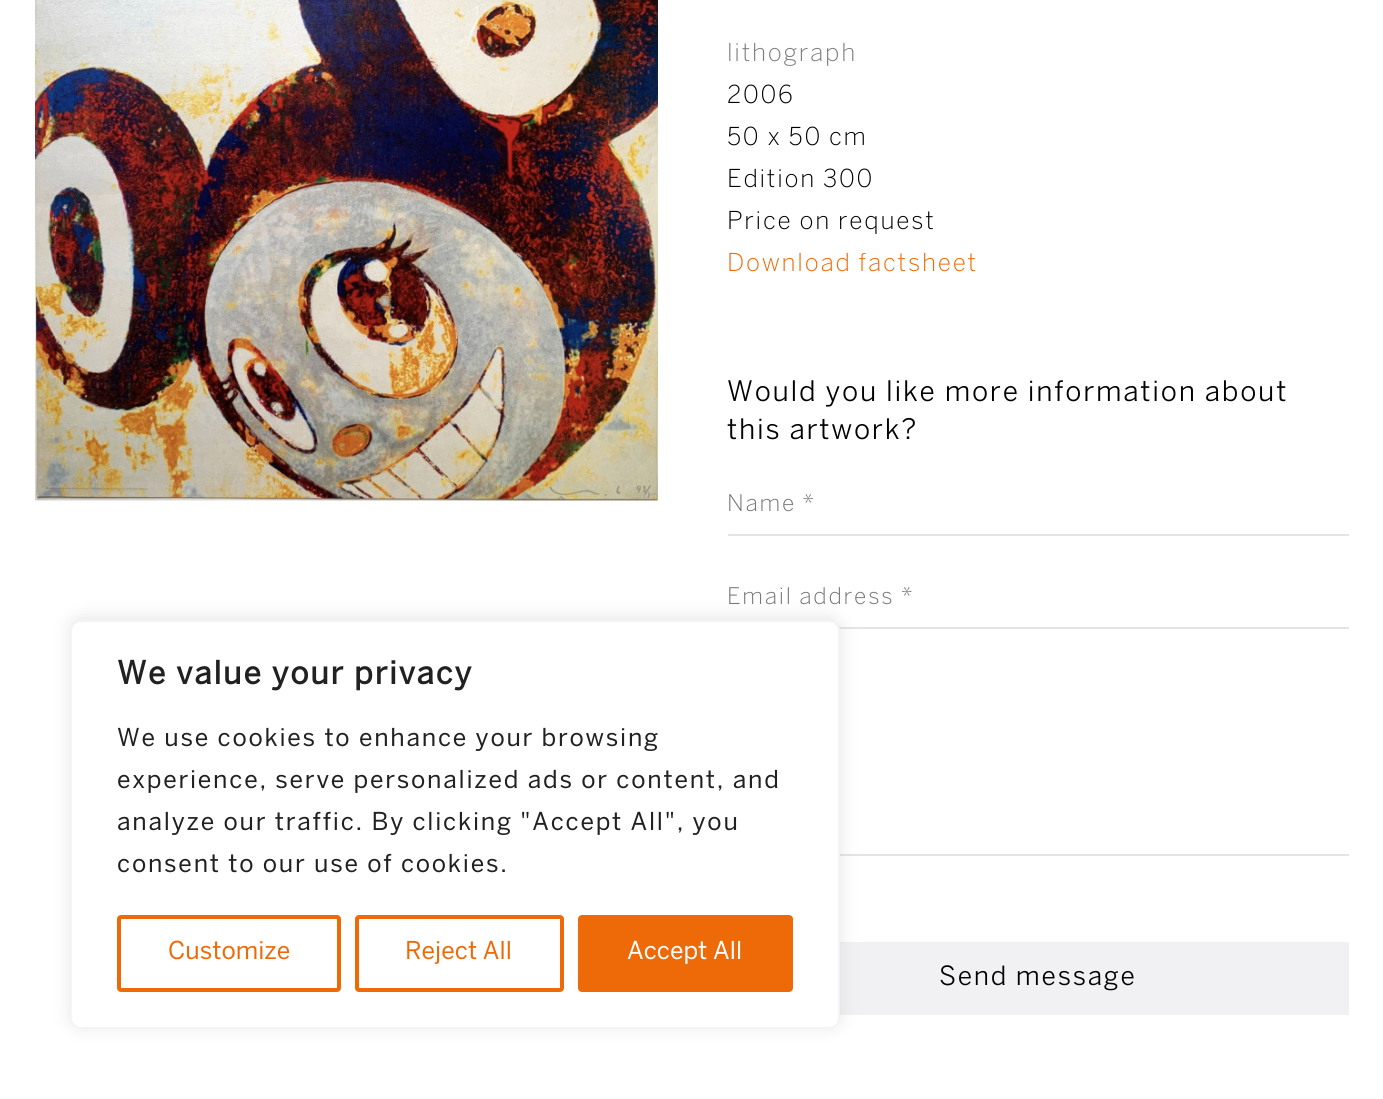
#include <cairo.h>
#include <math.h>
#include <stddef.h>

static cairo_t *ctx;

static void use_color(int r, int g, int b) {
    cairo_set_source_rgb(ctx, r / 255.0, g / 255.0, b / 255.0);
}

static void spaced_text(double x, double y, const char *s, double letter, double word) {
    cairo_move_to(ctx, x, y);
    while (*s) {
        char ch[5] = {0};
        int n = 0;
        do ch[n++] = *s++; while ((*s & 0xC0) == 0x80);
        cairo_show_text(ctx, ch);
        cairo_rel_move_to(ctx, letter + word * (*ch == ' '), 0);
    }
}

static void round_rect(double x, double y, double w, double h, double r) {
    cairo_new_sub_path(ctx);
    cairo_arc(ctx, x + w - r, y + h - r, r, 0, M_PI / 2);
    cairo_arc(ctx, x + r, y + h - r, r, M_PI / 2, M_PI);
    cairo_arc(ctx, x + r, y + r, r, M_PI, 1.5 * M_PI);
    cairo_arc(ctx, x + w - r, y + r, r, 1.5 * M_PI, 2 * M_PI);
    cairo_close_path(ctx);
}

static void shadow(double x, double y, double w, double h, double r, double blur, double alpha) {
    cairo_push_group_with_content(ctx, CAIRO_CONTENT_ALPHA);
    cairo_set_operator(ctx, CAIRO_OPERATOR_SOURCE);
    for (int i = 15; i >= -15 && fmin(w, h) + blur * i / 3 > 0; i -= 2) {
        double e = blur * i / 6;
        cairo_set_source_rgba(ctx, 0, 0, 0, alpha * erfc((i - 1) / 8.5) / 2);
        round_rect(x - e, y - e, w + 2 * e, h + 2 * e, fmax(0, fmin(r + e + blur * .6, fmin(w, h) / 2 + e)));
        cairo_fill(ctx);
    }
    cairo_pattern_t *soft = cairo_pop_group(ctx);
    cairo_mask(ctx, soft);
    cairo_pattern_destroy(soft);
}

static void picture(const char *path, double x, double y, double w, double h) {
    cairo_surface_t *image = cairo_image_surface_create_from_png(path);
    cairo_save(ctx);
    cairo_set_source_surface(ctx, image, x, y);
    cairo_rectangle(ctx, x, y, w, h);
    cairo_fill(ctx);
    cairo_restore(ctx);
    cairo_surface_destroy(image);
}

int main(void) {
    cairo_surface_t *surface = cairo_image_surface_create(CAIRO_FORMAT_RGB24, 1383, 1099);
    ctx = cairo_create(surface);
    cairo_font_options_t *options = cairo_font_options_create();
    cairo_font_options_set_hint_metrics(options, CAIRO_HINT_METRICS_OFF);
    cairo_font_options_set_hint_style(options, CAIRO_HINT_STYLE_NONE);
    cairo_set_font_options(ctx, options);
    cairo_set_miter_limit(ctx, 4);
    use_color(255, 255, 255);
    cairo_paint(ctx);
    use_color(228, 228, 232);
    cairo_rectangle(ctx, 839, 627, 510, 2);
    cairo_fill(ctx);
    cairo_rectangle(ctx, 840, 854, 509, 2);
    cairo_fill(ctx);
    use_color(241, 241, 243);
    cairo_rectangle(ctx, 840, 942, 509, 73);
    cairo_fill(ctx);
    use_color(172, 171, 171);
    shadow(70, 618, 770, 409, 11, 9, 0.3);
    use_color(255, 255, 255);
    round_rect(71, 621, 768, 407, 10);
    cairo_fill_preserve(ctx);
    use_color(244, 244, 244);
    cairo_stroke(ctx);
    cairo_select_font_face(ctx, "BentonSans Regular", CAIRO_FONT_SLANT_NORMAL, CAIRO_FONT_WEIGHT_BOLD);
    cairo_set_font_size(ctx, 31.5);
    use_color(33, 33, 33);
    spaced_text(117, 684, "We value your privacy", 1.75, 0);
    cairo_select_font_face(ctx, "BentonSans Regular", CAIRO_FONT_SLANT_NORMAL, CAIRO_FONT_WEIGHT_NORMAL);
    cairo_set_font_size(ctx, 24.5);
    spaced_text(117, 746, "We use cookies to enhance your browsing", 1.75, 0);
    spaced_text(117, 788, "experience, serve personalized ads or content, and", 1.75, 0);
    spaced_text(117, 830, "analyze our traffic. By clicking \"Accept All\", you", 1.75, 0);
    spaced_text(117, 872, "consent to our use of cookies.", 1.75, 0);
    round_rect(119, 917, 220, 73, 2);
    use_color(238, 106, 8);
    cairo_set_line_width(ctx, 4);
    cairo_stroke(ctx);
    cairo_move_to(ctx, 168, 959);
    cairo_show_text(ctx, "Customize");
    round_rect(357, 917, 205, 73, 2);
    cairo_stroke(ctx);
    cairo_move_to(ctx, 405, 959);
    cairo_show_text(ctx, "Reject All");
    round_rect(580, 917, 211, 73, 2);
    cairo_fill_preserve(ctx);
    cairo_stroke(ctx);
    use_color(255, 255, 255);
    cairo_move_to(ctx, 627, 959);
    cairo_show_text(ctx, "Accept All");
    picture("img1.png", 35, 0, 623, 501);
    cairo_select_font_face(ctx, "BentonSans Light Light", CAIRO_FONT_SLANT_NORMAL, CAIRO_FONT_WEIGHT_NORMAL);
    use_color(126, 126, 126);
    spaced_text(727, 61, "lithograph", 1.75, 0);
    use_color(0, 0, 0);
    spaced_text(727, 103, "2006", 1.75, 0);
    spaced_text(727, 145, "50 x 50 cm", 1.75, 0);
    spaced_text(727, 187, "Edition 300", 1.75, 0);
    spaced_text(727, 229, "Price on request", 1.75, 0);
    use_color(238, 106, 8);
    spaced_text(727, 271, "Download factsheet", 1.75, 0);
    cairo_select_font_face(ctx, "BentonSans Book", CAIRO_FONT_SLANT_NORMAL, CAIRO_FONT_WEIGHT_NORMAL);
    cairo_set_font_size(ctx, 28);
    use_color(0, 0, 0);
    spaced_text(727, 401, "Would you like more information about", 1.75, 0);
    spaced_text(727, 439, "this artwork?", 1.75, 0);
    use_color(228, 228, 232);
    cairo_rectangle(ctx, 728, 534, 621, 2);
    cairo_fill(ctx);
    cairo_select_font_face(ctx, "BentonSans Light Light", CAIRO_FONT_SLANT_NORMAL, CAIRO_FONT_WEIGHT_NORMAL);
    cairo_set_font_size(ctx, 22.75);
    use_color(117, 117, 117);
    spaced_text(727, 511, "Name *", 1.75, 0);
    spaced_text(727, 604, "Email address *", 1.75, 0);
    cairo_select_font_face(ctx, "BentonSans Book", CAIRO_FONT_SLANT_NORMAL, CAIRO_FONT_WEIGHT_NORMAL);
    cairo_set_font_size(ctx, 26.25);
    use_color(0, 0, 0);
    spaced_text(939, 985, "Send message", 1.75, 0);
    cairo_surface_write_to_png(surface, "result.png");
    cairo_font_options_destroy(options);
    cairo_destroy(ctx);
    cairo_surface_destroy(surface);
    return 0;
}
